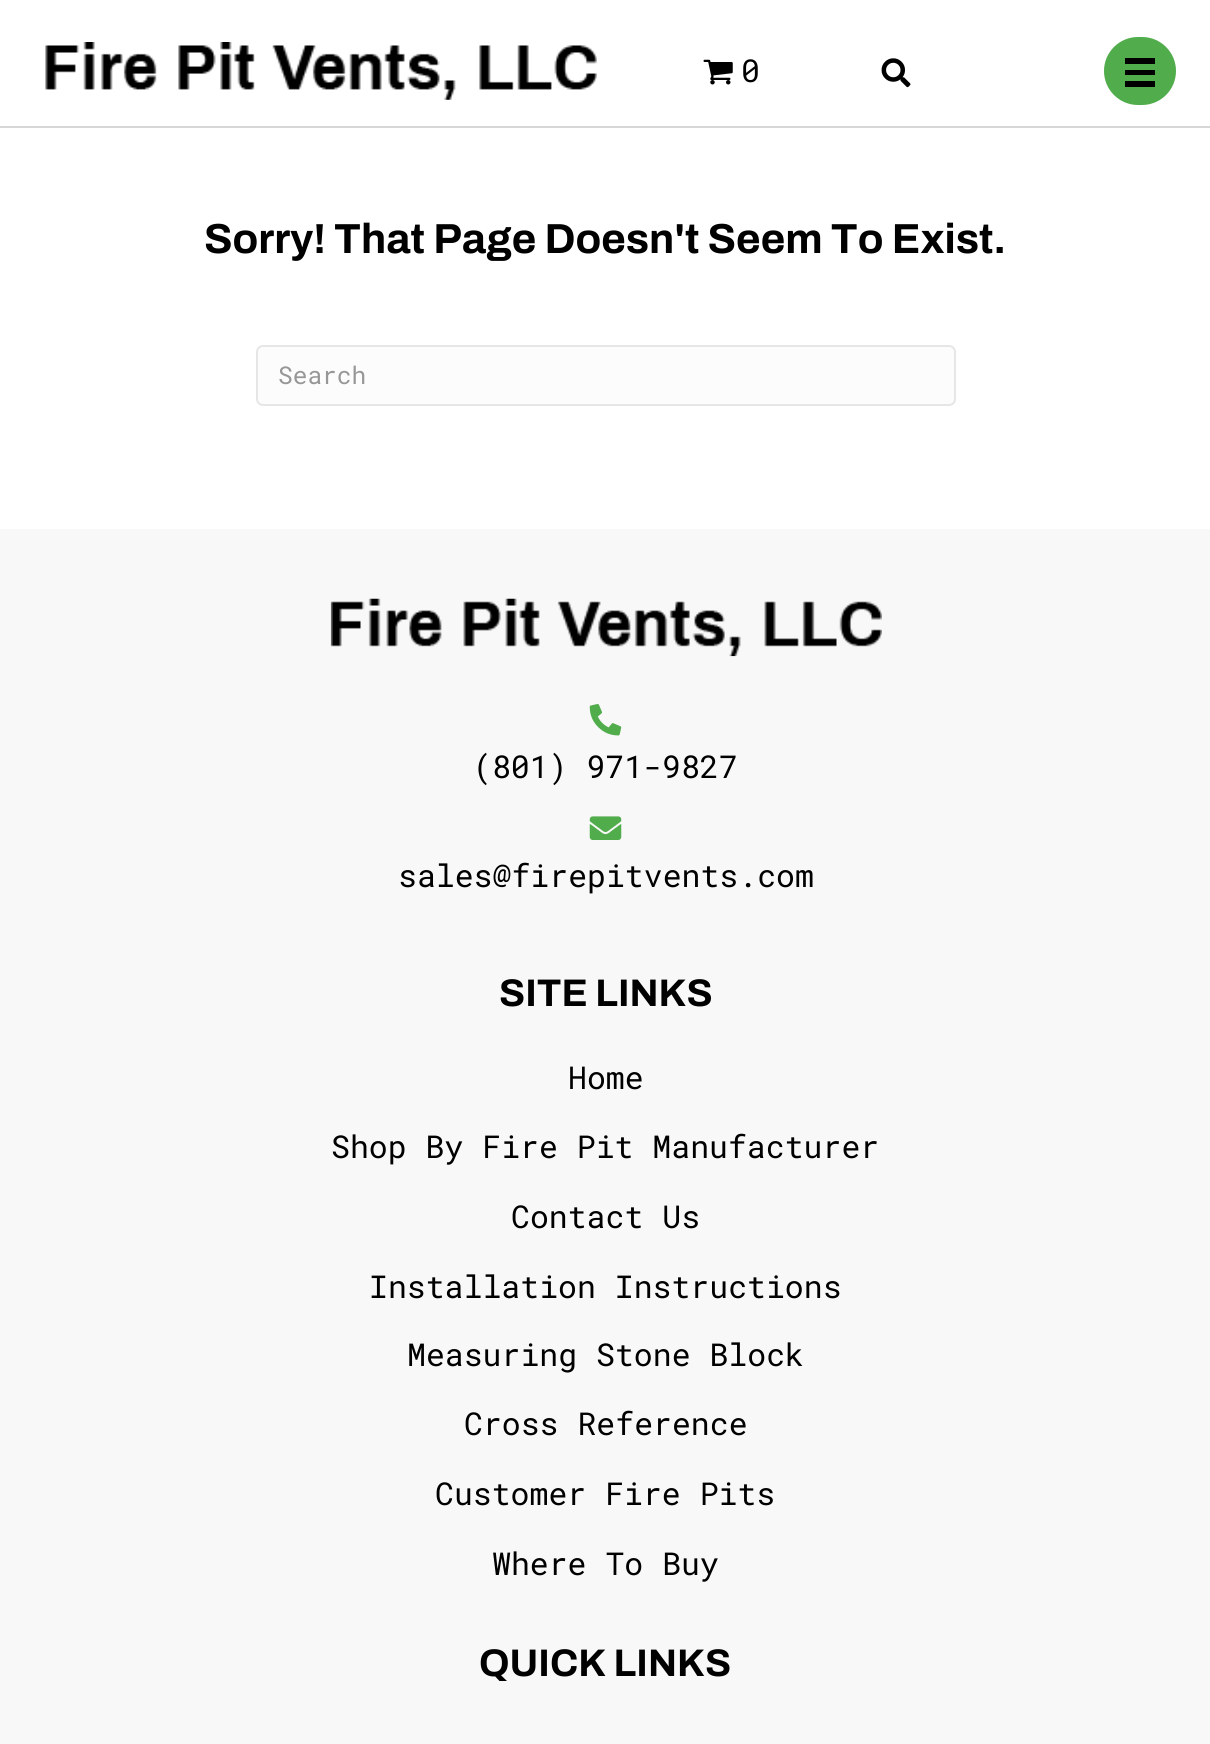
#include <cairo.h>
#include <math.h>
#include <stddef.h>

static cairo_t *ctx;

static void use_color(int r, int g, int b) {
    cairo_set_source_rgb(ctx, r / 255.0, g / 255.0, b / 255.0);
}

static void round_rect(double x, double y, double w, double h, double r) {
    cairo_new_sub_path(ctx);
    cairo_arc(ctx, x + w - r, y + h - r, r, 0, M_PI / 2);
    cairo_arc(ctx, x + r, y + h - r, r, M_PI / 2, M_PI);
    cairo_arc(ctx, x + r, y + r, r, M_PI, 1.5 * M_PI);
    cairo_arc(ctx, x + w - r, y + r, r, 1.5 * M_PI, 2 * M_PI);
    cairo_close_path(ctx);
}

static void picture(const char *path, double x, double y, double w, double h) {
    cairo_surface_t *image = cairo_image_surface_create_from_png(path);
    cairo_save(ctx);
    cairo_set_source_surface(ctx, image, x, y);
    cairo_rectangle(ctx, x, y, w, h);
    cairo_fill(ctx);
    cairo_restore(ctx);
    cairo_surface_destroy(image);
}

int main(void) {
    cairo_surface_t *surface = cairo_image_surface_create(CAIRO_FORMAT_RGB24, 1210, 1744);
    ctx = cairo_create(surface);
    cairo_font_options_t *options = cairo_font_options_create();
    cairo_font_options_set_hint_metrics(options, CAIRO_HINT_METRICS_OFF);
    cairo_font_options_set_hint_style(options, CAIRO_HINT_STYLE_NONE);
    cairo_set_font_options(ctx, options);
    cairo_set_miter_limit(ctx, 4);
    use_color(255, 255, 255);
    cairo_paint(ctx);
    use_color(214, 214, 214);
    cairo_rectangle(ctx, 0, 126, 1210, 2);
    cairo_fill(ctx);
    picture("img1.png", 45, 42, 552, 58);
    picture("img2.png", 703, 59, 30, 26);
    cairo_select_font_face(ctx, "Roboto Mono", CAIRO_FONT_SLANT_NORMAL, CAIRO_FONT_WEIGHT_NORMAL);
    cairo_set_font_size(ctx, 31.5);
    use_color(0, 0, 0);
    cairo_move_to(ctx, 741, 82);
    cairo_show_text(ctx, "0");
    picture("img3.png", 881, 58, 30, 30);
    use_color(81, 172, 75);
    round_rect(1104, 37, 72, 68, 34);
    cairo_fill(ctx);
    use_color(0, 0, 0);
    cairo_rectangle(ctx, 1125, 58, 30, 6);
    cairo_fill(ctx);
    cairo_rectangle(ctx, 1125, 70, 30, 5);
    cairo_fill(ctx);
    cairo_rectangle(ctx, 1125, 81, 30, 6);
    cairo_fill(ctx);
    cairo_select_font_face(ctx, "Archivo SemiBold", CAIRO_FONT_SLANT_NORMAL, CAIRO_FONT_WEIGHT_NORMAL);
    cairo_set_font_size(ctx, 42);
    cairo_move_to(ctx, 204, 253);
    cairo_show_text(ctx, "Sorry! That Page Doesn't Seem To Exist.");
    use_color(252, 252, 252);
    round_rect(257, 346, 698, 59, 6);
    cairo_fill_preserve(ctx);
    use_color(230, 230, 230);
    cairo_stroke(ctx);
    cairo_select_font_face(ctx, "Roboto Mono", CAIRO_FONT_SLANT_NORMAL, CAIRO_FONT_WEIGHT_NORMAL);
    cairo_set_font_size(ctx, 24.5);
    use_color(151, 151, 151);
    cairo_move_to(ctx, 278, 384);
    cairo_show_text(ctx, "Search");
    use_color(248, 248, 248);
    cairo_rectangle(ctx, 0, 529, 1210, 1215);
    cairo_fill(ctx);
    picture("img4.png", 330, 598, 552, 59);
    picture("img5.png", 589, 704, 33, 32);
    cairo_set_font_size(ctx, 31.5);
    use_color(0, 0, 0);
    cairo_move_to(ctx, 473, 778);
    cairo_show_text(ctx, "(801) 971-9827");
    picture("img6.png", 589, 816, 33, 24);
    cairo_move_to(ctx, 398, 887);
    cairo_show_text(ctx, "sales@firepitvents.com");
    cairo_select_font_face(ctx, "Archivo SemiBold", CAIRO_FONT_SLANT_NORMAL, CAIRO_FONT_WEIGHT_NORMAL);
    cairo_set_font_size(ctx, 38.5);
    cairo_move_to(ctx, 499, 1006);
    cairo_show_text(ctx, "SITE LINKS");
    cairo_select_font_face(ctx, "Roboto Mono", CAIRO_FONT_SLANT_NORMAL, CAIRO_FONT_WEIGHT_NORMAL);
    cairo_set_font_size(ctx, 31.5);
    cairo_move_to(ctx, 568, 1089);
    cairo_show_text(ctx, "Home");
    cairo_move_to(ctx, 331, 1158);
    cairo_show_text(ctx, "Shop By Fire Pit Manufacturer");
    cairo_move_to(ctx, 511, 1228);
    cairo_show_text(ctx, "Contact Us");
    cairo_move_to(ctx, 369, 1298);
    cairo_show_text(ctx, "Installation Instructions");
    cairo_move_to(ctx, 407, 1366);
    cairo_show_text(ctx, "Measuring Stone Block");
    cairo_move_to(ctx, 464, 1435);
    cairo_show_text(ctx, "Cross Reference");
    cairo_move_to(ctx, 435, 1505);
    cairo_show_text(ctx, "Customer Fire Pits");
    cairo_move_to(ctx, 492, 1575);
    cairo_show_text(ctx, "Where To Buy");
    cairo_select_font_face(ctx, "Archivo SemiBold", CAIRO_FONT_SLANT_NORMAL, CAIRO_FONT_WEIGHT_NORMAL);
    cairo_set_font_size(ctx, 38.5);
    cairo_move_to(ctx, 479, 1676);
    cairo_show_text(ctx, "QUICK LINKS");
    cairo_surface_write_to_png(surface, "result.png");
    cairo_font_options_destroy(options);
    cairo_destroy(ctx);
    cairo_surface_destroy(surface);
    return 0;
}
